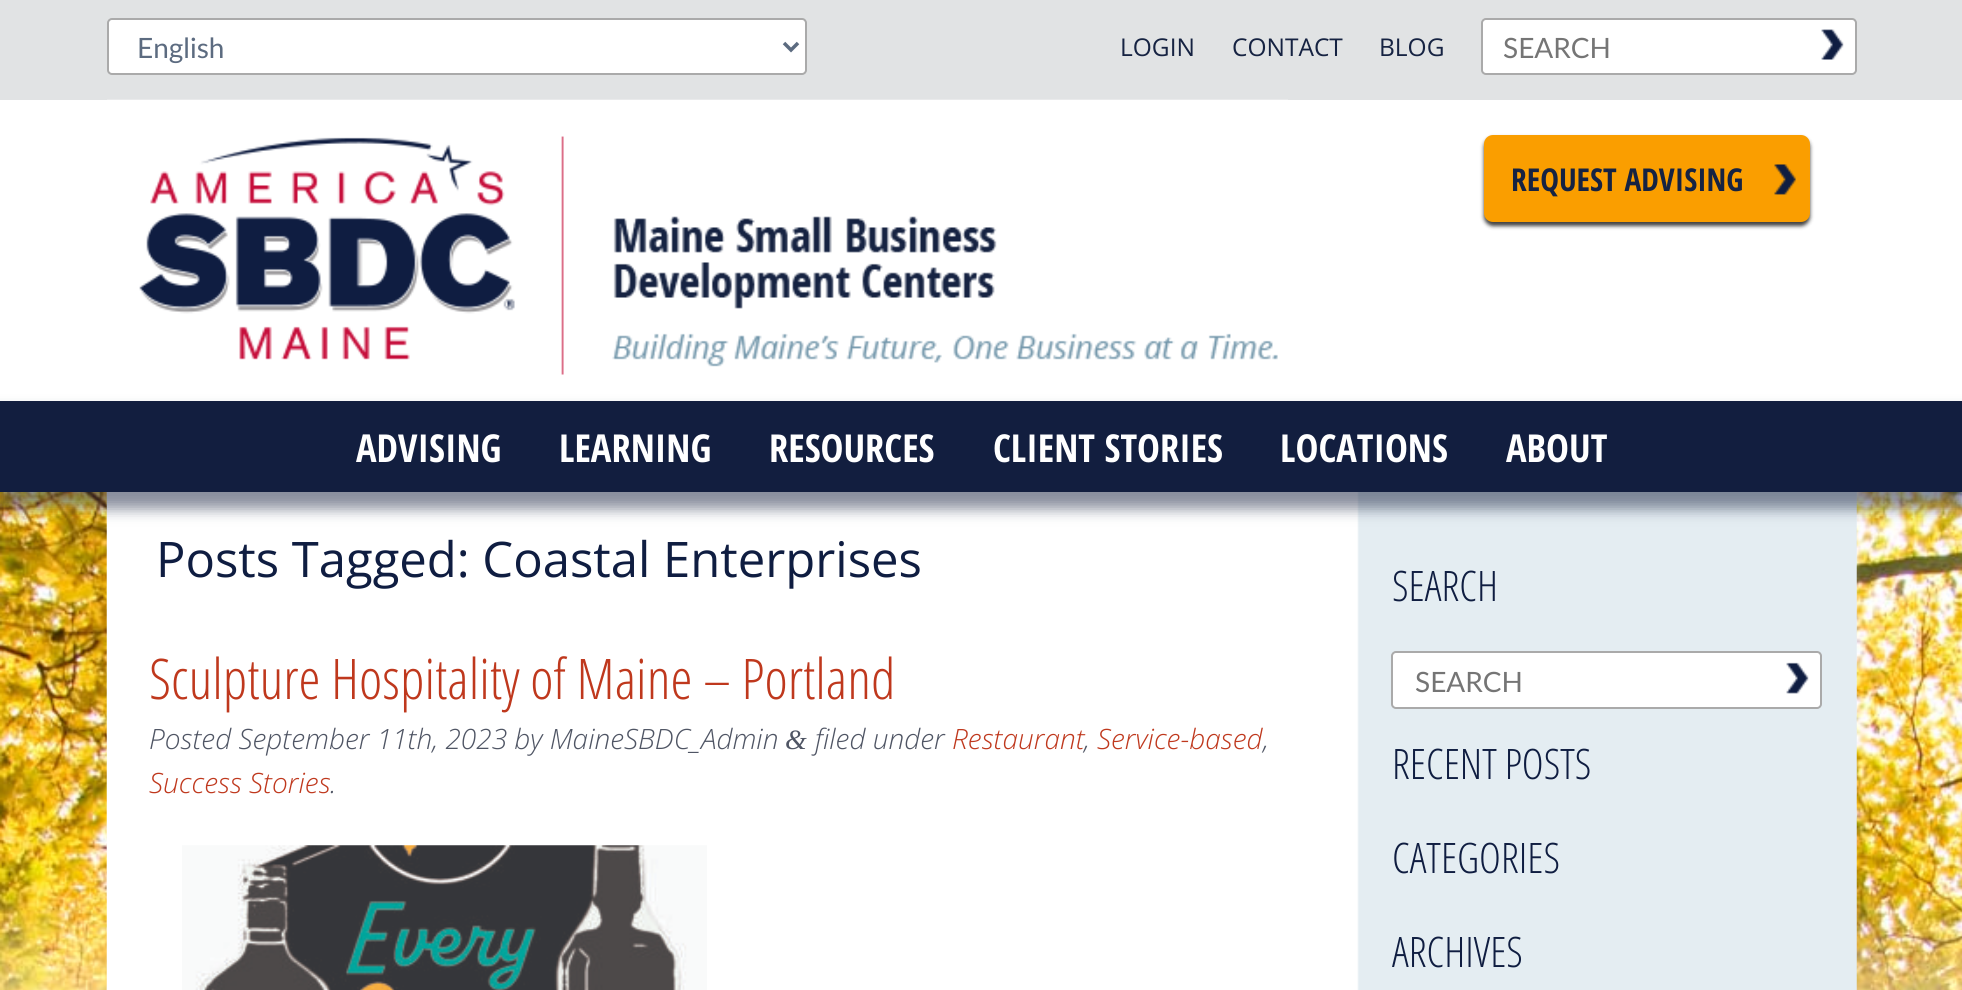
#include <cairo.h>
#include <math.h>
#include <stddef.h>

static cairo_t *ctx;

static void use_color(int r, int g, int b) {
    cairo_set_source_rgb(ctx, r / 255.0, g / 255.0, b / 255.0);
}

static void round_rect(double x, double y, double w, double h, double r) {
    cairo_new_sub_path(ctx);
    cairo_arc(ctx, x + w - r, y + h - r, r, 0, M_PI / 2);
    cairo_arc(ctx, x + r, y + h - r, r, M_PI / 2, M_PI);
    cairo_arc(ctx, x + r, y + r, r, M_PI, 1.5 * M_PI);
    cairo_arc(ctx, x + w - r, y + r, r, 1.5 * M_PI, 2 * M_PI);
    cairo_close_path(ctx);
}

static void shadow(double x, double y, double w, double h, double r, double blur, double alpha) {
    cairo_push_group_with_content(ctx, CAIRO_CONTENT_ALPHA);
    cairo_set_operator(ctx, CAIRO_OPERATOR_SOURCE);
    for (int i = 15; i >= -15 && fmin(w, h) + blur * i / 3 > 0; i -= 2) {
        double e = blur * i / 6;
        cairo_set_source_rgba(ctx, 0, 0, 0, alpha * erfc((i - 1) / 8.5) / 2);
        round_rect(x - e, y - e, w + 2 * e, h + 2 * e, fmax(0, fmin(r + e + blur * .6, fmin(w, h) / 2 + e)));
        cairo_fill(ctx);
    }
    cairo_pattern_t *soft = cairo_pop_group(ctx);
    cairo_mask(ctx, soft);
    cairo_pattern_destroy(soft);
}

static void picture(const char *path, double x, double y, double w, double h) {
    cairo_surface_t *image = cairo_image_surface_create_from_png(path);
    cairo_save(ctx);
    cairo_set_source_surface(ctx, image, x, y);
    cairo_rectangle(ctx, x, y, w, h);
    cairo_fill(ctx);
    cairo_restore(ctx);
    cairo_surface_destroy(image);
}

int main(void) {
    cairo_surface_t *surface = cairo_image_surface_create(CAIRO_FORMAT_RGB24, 1962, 990);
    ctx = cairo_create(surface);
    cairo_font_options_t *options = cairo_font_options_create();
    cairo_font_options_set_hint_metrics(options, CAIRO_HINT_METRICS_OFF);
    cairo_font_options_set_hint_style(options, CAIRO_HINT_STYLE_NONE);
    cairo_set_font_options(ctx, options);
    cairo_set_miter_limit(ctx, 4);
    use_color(255, 255, 255);
    cairo_paint(ctx);
    picture("img1.png", 0, 492, 1962, 498);
    use_color(225, 227, 228);
    cairo_rectangle(ctx, 0, 0, 1962, 100);
    cairo_fill(ctx);
    use_color(255, 255, 255);
    round_rect(108, 19, 698, 55, 4);
    cairo_fill_preserve(ctx);
    use_color(170, 170, 170);
    cairo_stroke(ctx);
    cairo_new_path(ctx);
    cairo_move_to(ctx, 784, 43);
    cairo_line_to(ctx, 791, 50);
    cairo_line_to(ctx, 798, 43);
    use_color(92, 107, 128);
    cairo_set_line_width(ctx, 3.5);
    cairo_stroke(ctx);
    cairo_select_font_face(ctx, "Lato", CAIRO_FONT_SLANT_NORMAL, CAIRO_FONT_WEIGHT_NORMAL);
    cairo_set_font_size(ctx, 28);
    cairo_move_to(ctx, 137, 58);
    cairo_show_text(ctx, "English");
    cairo_select_font_face(ctx, "Open Sans", CAIRO_FONT_SLANT_NORMAL, CAIRO_FONT_WEIGHT_NORMAL);
    cairo_set_font_size(ctx, 24.5);
    use_color(22, 35, 66);
    cairo_move_to(ctx, 1120, 56);
    cairo_show_text(ctx, "LOGIN");
    cairo_move_to(ctx, 1232, 56);
    cairo_show_text(ctx, "CONTACT");
    cairo_move_to(ctx, 1379, 56);
    cairo_show_text(ctx, "BLOG");
    use_color(255, 255, 255);
    round_rect(1482, 19, 374, 55, 4);
    cairo_fill_preserve(ctx);
    use_color(170, 170, 170);
    cairo_set_line_width(ctx, 2);
    cairo_stroke(ctx);
    cairo_select_font_face(ctx, "Lato", CAIRO_FONT_SLANT_NORMAL, CAIRO_FONT_WEIGHT_NORMAL);
    cairo_set_font_size(ctx, 28);
    use_color(117, 117, 117);
    cairo_move_to(ctx, 1503, 58);
    cairo_show_text(ctx, "SEARCH");
    picture("img2.png", 1821, 29, 23, 31);
    picture("img3.png", 107, 99, 1181, 276);
    use_color(0, 0, 0);
    shadow(1484, 138, 326, 88, 9, 2, 0.75);
    use_color(250, 158, 0);
    round_rect(1484, 135, 326, 87, 9);
    cairo_fill(ctx);
    picture("img4.png", 1774, 164, 22, 31);
    cairo_select_font_face(ctx, "Open Sans Condensed", CAIRO_FONT_SLANT_NORMAL, CAIRO_FONT_WEIGHT_BOLD);
    cairo_set_font_size(ctx, 31.5);
    use_color(22, 35, 66);
    cairo_move_to(ctx, 1511, 191);
    cairo_show_text(ctx, "REQUEST ADVISING");
    picture("img5.png", 106, 492, 1751, 498);
    use_color(21, 31, 61);
    shadow(-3, 411, 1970, 98, 0, 7, 0.5);
    use_color(18, 30, 63);
    cairo_rectangle(ctx, 0, 401, 1962, 91);
    cairo_fill(ctx);
    cairo_set_font_size(ctx, 38.5);
    use_color(255, 255, 255);
    cairo_move_to(ctx, 356, 462);
    cairo_show_text(ctx, "ADVISING");
    cairo_move_to(ctx, 559, 462);
    cairo_show_text(ctx, "LEARNING");
    cairo_move_to(ctx, 769, 462);
    cairo_show_text(ctx, "RESOURCES");
    cairo_move_to(ctx, 993, 462);
    cairo_show_text(ctx, "CLIENT STORIES");
    cairo_move_to(ctx, 1280, 462);
    cairo_show_text(ctx, "LOCATIONS");
    cairo_move_to(ctx, 1506, 462);
    cairo_show_text(ctx, "ABOUT");
    cairo_select_font_face(ctx, "Open Sans", CAIRO_FONT_SLANT_NORMAL, CAIRO_FONT_WEIGHT_NORMAL);
    cairo_set_font_size(ctx, 49);
    use_color(15, 29, 65);
    cairo_move_to(ctx, 156, 577);
    cairo_show_text(ctx, "Posts Tagged: Coastal Enterprises");
    cairo_select_font_face(ctx, "Open Sans Condensed Light", CAIRO_FONT_SLANT_NORMAL, CAIRO_FONT_WEIGHT_NORMAL);
    cairo_set_font_size(ctx, 56);
    use_color(191, 56, 29);
    cairo_move_to(ctx, 149, 699);
    cairo_show_text(ctx, "Sculpture Hospitality of Maine – Portland");
    cairo_select_font_face(ctx, "Open Sans Light", CAIRO_FONT_SLANT_ITALIC, CAIRO_FONT_WEIGHT_NORMAL);
    cairo_set_font_size(ctx, 28);
    use_color(79, 85, 100);
    cairo_move_to(ctx, 149, 749);
    cairo_show_text(ctx, "Posted September 11th, 2023 by MaineSBDC_Admin");
    cairo_select_font_face(ctx, "Liberation Serif", CAIRO_FONT_SLANT_ITALIC, CAIRO_FONT_WEIGHT_NORMAL);
    cairo_move_to(ctx, 785, 749);
    cairo_show_text(ctx, "&");
    cairo_select_font_face(ctx, "Open Sans Light", CAIRO_FONT_SLANT_ITALIC, CAIRO_FONT_WEIGHT_NORMAL);
    cairo_move_to(ctx, 815, 749);
    cairo_show_text(ctx, "filed under");
    use_color(191, 56, 29);
    cairo_move_to(ctx, 952, 749);
    cairo_show_text(ctx, "Restaurant");
    use_color(79, 85, 100);
    cairo_move_to(ctx, 1084, 749);
    cairo_show_text(ctx, ",");
    use_color(191, 56, 29);
    cairo_move_to(ctx, 1097, 749);
    cairo_show_text(ctx, "Service-based");
    use_color(79, 85, 100);
    cairo_move_to(ctx, 1263, 749);
    cairo_show_text(ctx, ",");
    use_color(191, 56, 29);
    cairo_move_to(ctx, 149, 793);
    cairo_show_text(ctx, "Success Stories");
    use_color(79, 85, 100);
    cairo_move_to(ctx, 330, 793);
    cairo_show_text(ctx, ".");
    picture("img6.png", 182, 845, 525, 145);
    cairo_select_font_face(ctx, "Open Sans Condensed Light", CAIRO_FONT_SLANT_NORMAL, CAIRO_FONT_WEIGHT_NORMAL);
    cairo_set_font_size(ctx, 42);
    use_color(15, 29, 65);
    cairo_move_to(ctx, 1392, 601);
    cairo_show_text(ctx, "SEARCH");
    use_color(255, 255, 255);
    round_rect(1392, 652, 429, 56, 4);
    cairo_fill_preserve(ctx);
    use_color(170, 170, 170);
    cairo_stroke(ctx);
    cairo_select_font_face(ctx, "Lato", CAIRO_FONT_SLANT_NORMAL, CAIRO_FONT_WEIGHT_NORMAL);
    cairo_set_font_size(ctx, 28);
    use_color(117, 117, 117);
    cairo_move_to(ctx, 1415, 692);
    cairo_show_text(ctx, "SEARCH");
    picture("img7.png", 1786, 662, 23, 32);
    cairo_select_font_face(ctx, "Open Sans Condensed Light", CAIRO_FONT_SLANT_NORMAL, CAIRO_FONT_WEIGHT_NORMAL);
    cairo_set_font_size(ctx, 42);
    use_color(15, 29, 65);
    cairo_move_to(ctx, 1392, 779);
    cairo_show_text(ctx, "RECENT POSTS");
    cairo_move_to(ctx, 1392, 873);
    cairo_show_text(ctx, "CATEGORIES");
    cairo_move_to(ctx, 1392, 967);
    cairo_show_text(ctx, "ARCHIVES");
    cairo_surface_write_to_png(surface, "result.png");
    cairo_font_options_destroy(options);
    cairo_destroy(ctx);
    cairo_surface_destroy(surface);
    return 0;
}
